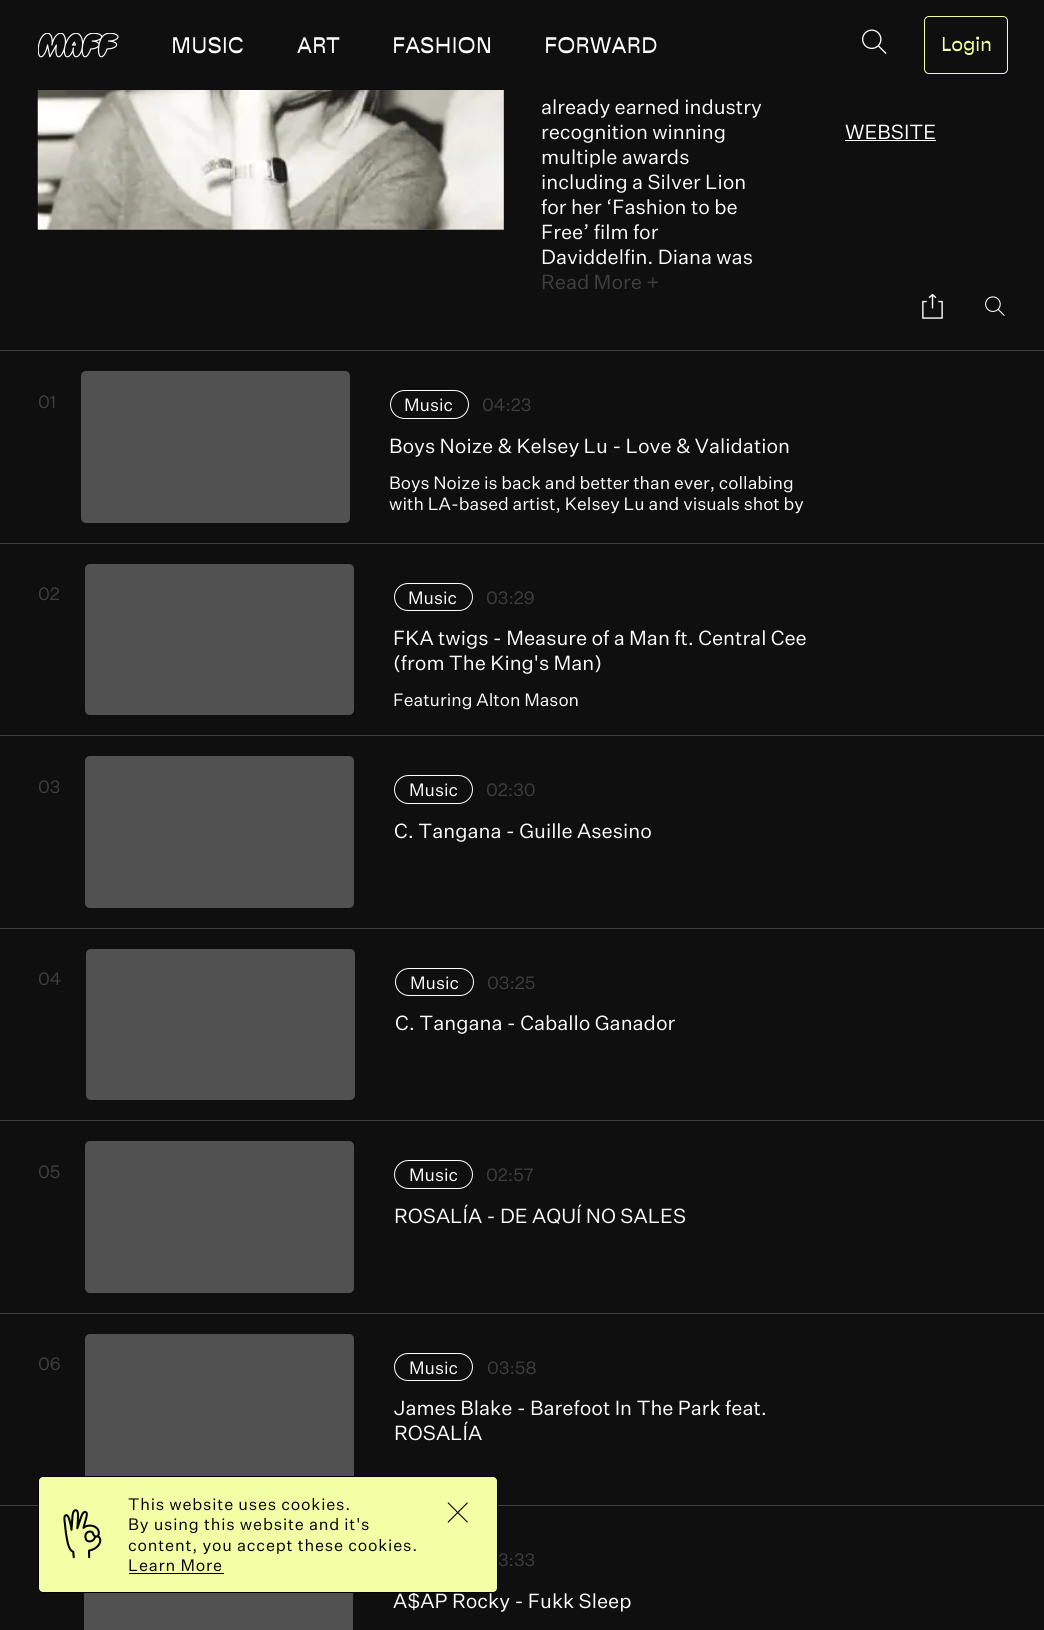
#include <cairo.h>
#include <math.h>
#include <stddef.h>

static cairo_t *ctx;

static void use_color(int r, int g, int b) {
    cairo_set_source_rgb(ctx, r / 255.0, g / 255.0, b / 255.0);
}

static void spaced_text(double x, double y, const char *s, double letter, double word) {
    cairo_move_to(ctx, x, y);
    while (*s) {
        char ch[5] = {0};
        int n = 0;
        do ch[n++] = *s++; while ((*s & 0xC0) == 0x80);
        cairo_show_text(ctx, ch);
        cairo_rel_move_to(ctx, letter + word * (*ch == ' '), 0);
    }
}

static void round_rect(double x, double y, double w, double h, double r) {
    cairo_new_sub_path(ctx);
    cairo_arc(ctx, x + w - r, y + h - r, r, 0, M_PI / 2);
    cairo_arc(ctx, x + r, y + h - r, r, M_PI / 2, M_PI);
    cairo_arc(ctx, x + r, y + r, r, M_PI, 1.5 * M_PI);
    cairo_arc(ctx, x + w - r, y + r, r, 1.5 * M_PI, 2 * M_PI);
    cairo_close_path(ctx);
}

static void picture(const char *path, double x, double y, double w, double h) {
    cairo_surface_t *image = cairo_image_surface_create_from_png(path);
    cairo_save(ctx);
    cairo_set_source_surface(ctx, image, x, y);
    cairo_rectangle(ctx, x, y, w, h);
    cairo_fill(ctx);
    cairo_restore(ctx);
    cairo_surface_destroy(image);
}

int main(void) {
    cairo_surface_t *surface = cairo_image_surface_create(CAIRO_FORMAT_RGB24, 1044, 1630);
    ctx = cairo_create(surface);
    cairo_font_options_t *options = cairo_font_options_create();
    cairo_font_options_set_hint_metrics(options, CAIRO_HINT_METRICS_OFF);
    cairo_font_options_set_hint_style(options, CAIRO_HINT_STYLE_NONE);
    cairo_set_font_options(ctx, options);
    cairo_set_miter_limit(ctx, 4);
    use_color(15, 15, 15);
    cairo_paint(ctx);
    picture("img1.png", 38, 33, 81, 25);
    cairo_select_font_face(ctx, "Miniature", CAIRO_FONT_SLANT_NORMAL, CAIRO_FONT_WEIGHT_NORMAL);
    cairo_set_font_size(ctx, 22.5);
    use_color(255, 255, 255);
    cairo_move_to(ctx, 171, 53);
    cairo_show_text(ctx, "MUSIC");
    cairo_move_to(ctx, 297, 53);
    cairo_show_text(ctx, "ART");
    cairo_move_to(ctx, 392, 53);
    cairo_show_text(ctx, "FASHION");
    cairo_move_to(ctx, 544, 53);
    cairo_show_text(ctx, "FORWARD");
    picture("img2.png", 862, 29, 25, 25);
    round_rect(924.5, 16.5, 83, 57, 4.5);
    use_color(242, 255, 164);
    cairo_set_line_width(ctx, 1);
    cairo_stroke(ctx);
    cairo_set_font_size(ctx, 20);
    cairo_move_to(ctx, 941, 51);
    cairo_show_text(ctx, "Login");
    use_color(81, 81, 81);
    cairo_rectangle(ctx, 38, 90, 466, 140);
    cairo_fill(ctx);
    picture("img3.png", 37, 90, 467, 140);
    cairo_select_font_face(ctx, "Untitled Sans", CAIRO_FONT_SLANT_NORMAL, CAIRO_FONT_WEIGHT_NORMAL);
    use_color(255, 255, 255);
    cairo_move_to(ctx, 541, 114);
    cairo_show_text(ctx, "already earned industry");
    cairo_move_to(ctx, 541, 139);
    cairo_show_text(ctx, "recognition winning");
    cairo_move_to(ctx, 541, 164);
    cairo_show_text(ctx, "multiple awards");
    cairo_move_to(ctx, 541, 189);
    cairo_show_text(ctx, "including a Silver Lion");
    cairo_move_to(ctx, 541, 214);
    cairo_show_text(ctx, "for her ‘Fashion to be");
    cairo_move_to(ctx, 541, 239);
    cairo_show_text(ctx, "Free’ film for");
    cairo_move_to(ctx, 541, 264);
    cairo_show_text(ctx, "Daviddelfin. Diana was");
    use_color(63, 63, 63);
    cairo_move_to(ctx, 541, 289);
    cairo_show_text(ctx, "Read More +");
    use_color(255, 255, 255);
    cairo_move_to(ctx, 845, 139);
    cairo_show_text(ctx, "WEBSITE");
    cairo_rectangle(ctx, 845, 140, 91, 1);
    cairo_fill(ctx);
    picture("img4.png", 922, 294, 21, 25);
    picture("img5.png", 985, 296, 20, 20);
    use_color(63, 63, 63);
    cairo_rectangle(ctx, 0, 350, 1044, 1);
    cairo_fill(ctx);
    cairo_set_font_size(ctx, 17.5);
    cairo_move_to(ctx, 38, 408);
    cairo_show_text(ctx, "01");
    use_color(81, 81, 81);
    round_rect(81, 371, 269, 152, 5);
    cairo_fill(ctx);
    round_rect(390.5, 390.5, 78, 28, 14);
    use_color(255, 255, 255);
    cairo_stroke(ctx);
    cairo_move_to(ctx, 404, 411);
    cairo_show_text(ctx, "Music");
    use_color(63, 63, 63);
    cairo_move_to(ctx, 482, 411);
    cairo_show_text(ctx, "04:23");
    cairo_set_font_size(ctx, 20);
    use_color(255, 255, 255);
    cairo_move_to(ctx, 389, 453);
    cairo_show_text(ctx, "Boys Noize & Kelsey Lu - Love & Validation");
    cairo_set_font_size(ctx, 17.5);
    cairo_move_to(ctx, 389, 489);
    cairo_show_text(ctx, "Boys Noize is back and better than ever, collabing");
    cairo_move_to(ctx, 389, 510);
    cairo_show_text(ctx, "with LA-based artist, Kelsey Lu and visuals shot by");
    use_color(63, 63, 63);
    cairo_rectangle(ctx, 0, 543, 1044, 1);
    cairo_fill(ctx);
    cairo_move_to(ctx, 38, 600);
    cairo_show_text(ctx, "02");
    use_color(81, 81, 81);
    round_rect(85, 564, 269, 151, 5);
    cairo_fill(ctx);
    round_rect(394.5, 583.5, 78, 27, 13.5);
    use_color(255, 255, 255);
    cairo_stroke(ctx);
    cairo_move_to(ctx, 408, 604);
    cairo_show_text(ctx, "Music");
    use_color(63, 63, 63);
    cairo_move_to(ctx, 486, 604);
    cairo_show_text(ctx, "03:29");
    cairo_set_font_size(ctx, 20);
    use_color(255, 255, 255);
    cairo_move_to(ctx, 393, 645);
    cairo_show_text(ctx, "FKA twigs - Measure of a Man ft. Central Cee");
    cairo_move_to(ctx, 393, 670);
    cairo_show_text(ctx, "(from The King's Man)");
    cairo_set_font_size(ctx, 17.5);
    cairo_move_to(ctx, 393, 706);
    cairo_show_text(ctx, "Featuring Alton Mason");
    use_color(63, 63, 63);
    cairo_rectangle(ctx, 0, 735, 1044, 1);
    cairo_fill(ctx);
    cairo_move_to(ctx, 38, 793);
    cairo_show_text(ctx, "03");
    use_color(81, 81, 81);
    round_rect(85, 756, 269, 152, 5);
    cairo_fill(ctx);
    round_rect(394.5, 775.5, 78, 28, 14);
    use_color(255, 255, 255);
    cairo_stroke(ctx);
    cairo_move_to(ctx, 409, 796);
    cairo_show_text(ctx, "Music");
    use_color(63, 63, 63);
    cairo_move_to(ctx, 486, 796);
    cairo_show_text(ctx, "02:30");
    cairo_set_font_size(ctx, 20);
    use_color(255, 255, 255);
    cairo_move_to(ctx, 394, 838);
    cairo_show_text(ctx, "C. Tangana - Guille Asesino");
    use_color(63, 63, 63);
    cairo_rectangle(ctx, 0, 928, 1044, 1);
    cairo_fill(ctx);
    cairo_set_font_size(ctx, 17.5);
    cairo_move_to(ctx, 38, 985);
    cairo_show_text(ctx, "04");
    use_color(81, 81, 81);
    round_rect(86, 949, 269, 151, 5);
    cairo_fill(ctx);
    round_rect(395.5, 968.5, 78, 27, 13.5);
    use_color(255, 255, 255);
    cairo_stroke(ctx);
    cairo_move_to(ctx, 410, 989);
    cairo_show_text(ctx, "Music");
    use_color(63, 63, 63);
    cairo_move_to(ctx, 487, 989);
    cairo_show_text(ctx, "03:25");
    cairo_set_font_size(ctx, 20);
    use_color(255, 255, 255);
    cairo_move_to(ctx, 395, 1030);
    cairo_show_text(ctx, "C. Tangana - Caballo Ganador");
    use_color(63, 63, 63);
    cairo_rectangle(ctx, 0, 1120, 1044, 1);
    cairo_fill(ctx);
    cairo_set_font_size(ctx, 17.5);
    cairo_move_to(ctx, 38, 1178);
    cairo_show_text(ctx, "05");
    use_color(81, 81, 81);
    round_rect(85, 1141, 269, 152, 5);
    cairo_fill(ctx);
    round_rect(394.5, 1160.5, 78, 28, 14);
    use_color(255, 255, 255);
    cairo_stroke(ctx);
    cairo_move_to(ctx, 409, 1181);
    cairo_show_text(ctx, "Music");
    use_color(63, 63, 63);
    cairo_move_to(ctx, 486, 1181);
    cairo_show_text(ctx, "02:57");
    cairo_set_font_size(ctx, 20);
    use_color(255, 255, 255);
    cairo_move_to(ctx, 394, 1223);
    cairo_show_text(ctx, "ROSALÍA - DE AQUÍ NO SALES");
    use_color(63, 63, 63);
    cairo_rectangle(ctx, 0, 1313, 1044, 1);
    cairo_fill(ctx);
    cairo_set_font_size(ctx, 17.5);
    cairo_move_to(ctx, 38, 1370);
    cairo_show_text(ctx, "06");
    use_color(81, 81, 81);
    round_rect(85, 1334, 269, 151, 5);
    cairo_fill(ctx);
    round_rect(394.5, 1353.5, 78, 27, 13.5);
    use_color(255, 255, 255);
    cairo_stroke(ctx);
    cairo_move_to(ctx, 409, 1374);
    cairo_show_text(ctx, "Music");
    use_color(63, 63, 63);
    cairo_move_to(ctx, 487, 1374);
    cairo_show_text(ctx, "03:58");
    cairo_set_font_size(ctx, 20);
    use_color(255, 255, 255);
    cairo_move_to(ctx, 394, 1415);
    cairo_show_text(ctx, "James Blake - Barefoot In The Park feat.");
    cairo_move_to(ctx, 394, 1440);
    cairo_show_text(ctx, "ROSALÍA");
    use_color(63, 63, 63);
    cairo_rectangle(ctx, 0, 1505, 1044, 1);
    cairo_fill(ctx);
    use_color(81, 81, 81);
    cairo_rectangle(ctx, 84, 1593, 269, 37);
    cairo_fill(ctx);
    cairo_set_font_size(ctx, 17.5);
    use_color(63, 63, 63);
    cairo_move_to(ctx, 498, 1566);
    cairo_show_text(ctx, "3:33");
    cairo_set_font_size(ctx, 20);
    use_color(255, 255, 255);
    cairo_move_to(ctx, 393, 1608);
    cairo_show_text(ctx, "A$AP Rocky - Fukk Sleep");
    use_color(242, 255, 164);
    round_rect(38.5, 1476.5, 459, 116, 4.5);
    cairo_fill_preserve(ctx);
    use_color(0, 0, 0);
    cairo_stroke(ctx);
    picture("img6.png", 63, 1509, 39, 50);
    cairo_set_font_size(ctx, 16.25);
    spaced_text(128, 1510, "This website uses cookies.", 0.8, 0);
    spaced_text(128, 1530, "By using this website and it's", 0.8, 0);
    spaced_text(128, 1551, "content, you accept these cookies.", 0.8, 0);
    spaced_text(128, 1571, "Learn More", 0.8, 0);
    cairo_rectangle(ctx, 129, 1573, 95, 1);
    cairo_fill(ctx);
    picture("img7.png", 447, 1502, 21, 21);
    cairo_surface_write_to_png(surface, "result.png");
    cairo_font_options_destroy(options);
    cairo_destroy(ctx);
    cairo_surface_destroy(surface);
    return 0;
}
